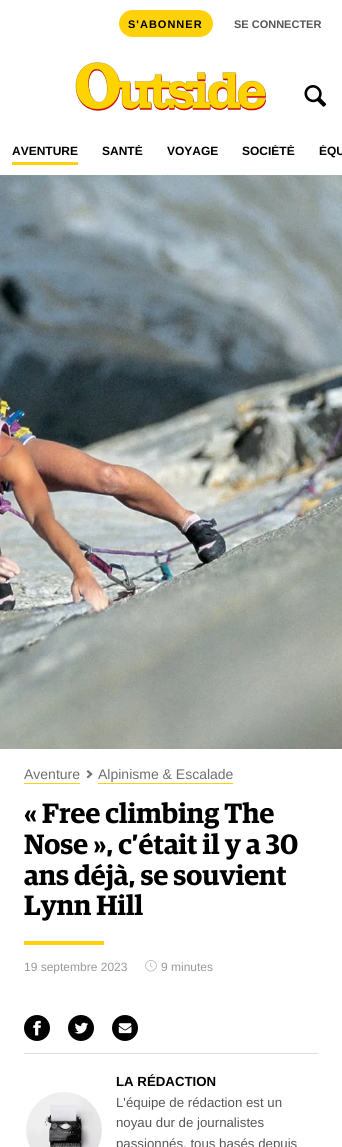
#include <cairo.h>
#include <math.h>
#include <stddef.h>

static cairo_t *ctx;

static void use_color(int r, int g, int b) {
    cairo_set_source_rgb(ctx, r / 255.0, g / 255.0, b / 255.0);
}

static void spaced_text(double x, double y, const char *s, double letter, double word) {
    cairo_move_to(ctx, x, y);
    while (*s) {
        char ch[5] = {0};
        int n = 0;
        do ch[n++] = *s++; while ((*s & 0xC0) == 0x80);
        cairo_show_text(ctx, ch);
        cairo_rel_move_to(ctx, letter + word * (*ch == ' '), 0);
    }
}

static void round_rect(double x, double y, double w, double h, double r) {
    cairo_new_sub_path(ctx);
    cairo_arc(ctx, x + w - r, y + h - r, r, 0, M_PI / 2);
    cairo_arc(ctx, x + r, y + h - r, r, M_PI / 2, M_PI);
    cairo_arc(ctx, x + r, y + r, r, M_PI, 1.5 * M_PI);
    cairo_arc(ctx, x + w - r, y + r, r, 1.5 * M_PI, 2 * M_PI);
    cairo_close_path(ctx);
}

static void picture(const char *path, double x, double y, double w, double h) {
    cairo_surface_t *image = cairo_image_surface_create_from_png(path);
    cairo_save(ctx);
    cairo_set_source_surface(ctx, image, x, y);
    cairo_rectangle(ctx, x, y, w, h);
    cairo_fill(ctx);
    cairo_restore(ctx);
    cairo_surface_destroy(image);
}

int main(void) {
    cairo_surface_t *surface = cairo_image_surface_create(CAIRO_FORMAT_RGB24, 342, 1147);
    ctx = cairo_create(surface);
    cairo_font_options_t *options = cairo_font_options_create();
    cairo_font_options_set_hint_metrics(options, CAIRO_HINT_METRICS_OFF);
    cairo_font_options_set_hint_style(options, CAIRO_HINT_STYLE_NONE);
    cairo_set_font_options(ctx, options);
    cairo_set_miter_limit(ctx, 4);
    use_color(255, 255, 255);
    cairo_paint(ctx);
    use_color(254, 209, 10);
    round_rect(119, 10, 94, 27, 13.5);
    cairo_fill(ctx);
    cairo_select_font_face(ctx, "Liberation Sans", CAIRO_FONT_SLANT_NORMAL, CAIRO_FONT_WEIGHT_BOLD);
    cairo_set_font_size(ctx, 11);
    use_color(0, 0, 0);
    spaced_text(128, 28, "S'ABONNER", 1, 0);
    use_color(86, 86, 86);
    cairo_move_to(ctx, 234, 28);
    cairo_show_text(ctx, "SE CONNECTER");
    picture("img1.png", 75, 62, 192, 49);
    picture("img2.png", 304, 85, 23, 22);
    cairo_set_font_size(ctx, 12);
    use_color(0, 0, 0);
    cairo_move_to(ctx, 12, 155);
    cairo_show_text(ctx, "AVENTURE");
    use_color(254, 209, 10);
    cairo_rectangle(ctx, 12, 162, 66, 3);
    cairo_fill(ctx);
    cairo_save(ctx);
    cairo_rectangle(ctx, 0, 145, 342, 20);
    cairo_clip(ctx);
    use_color(0, 0, 0);
    cairo_move_to(ctx, 102, 155);
    cairo_show_text(ctx, "SANTÉ");
    cairo_restore(ctx);
    use_color(0, 0, 0);
    cairo_move_to(ctx, 167, 155);
    cairo_show_text(ctx, "VOYAGE");
    cairo_save(ctx);
    cairo_rectangle(ctx, 0, 145, 342, 20);
    cairo_clip(ctx);
    cairo_move_to(ctx, 242, 155);
    cairo_show_text(ctx, "SOCIÉTÉ");
    cairo_move_to(ctx, 319, 155);
    cairo_show_text(ctx, "ÉQU");
    cairo_restore(ctx);
    picture("img3.png", 0, 175, 342, 574);
    cairo_select_font_face(ctx, "Liberation Sans", CAIRO_FONT_SLANT_NORMAL, CAIRO_FONT_WEIGHT_NORMAL);
    cairo_set_font_size(ctx, 14);
    use_color(109, 110, 112);
    cairo_move_to(ctx, 24, 779);
    cairo_show_text(ctx, "Aventure");
    use_color(254, 209, 10);
    cairo_rectangle(ctx, 24, 783, 56, 1);
    cairo_fill(ctx);
    use_color(109, 110, 112);
    cairo_new_path(ctx);
    cairo_move_to(ctx, 92.5, 774);
    cairo_line_to(ctx, 88, 778.5);
    cairo_line_to(ctx, 86.5, 777);
    cairo_line_to(ctx, 91, 773);
    cairo_close_path(ctx);
    cairo_fill(ctx);
    cairo_new_path(ctx);
    cairo_move_to(ctx, 92.5, 774);
    cairo_line_to(ctx, 91, 775.5);
    cairo_line_to(ctx, 86.5, 771.5);
    cairo_line_to(ctx, 88, 770);
    cairo_close_path(ctx);
    cairo_fill(ctx);
    cairo_move_to(ctx, 98, 779);
    cairo_show_text(ctx, "Alpinisme & Escalade");
    use_color(254, 209, 10);
    cairo_rectangle(ctx, 98, 783, 135, 1);
    cairo_fill(ctx);
    cairo_select_font_face(ctx, "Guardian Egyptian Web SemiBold", CAIRO_FONT_SLANT_NORMAL, CAIRO_FONT_WEIGHT_NORMAL);
    cairo_set_font_size(ctx, 28);
    use_color(0, 0, 0);
    cairo_move_to(ctx, 24, 823);
    cairo_show_text(ctx, "« Free climbing The");
    cairo_move_to(ctx, 24, 854);
    cairo_show_text(ctx, "Nose », c’était il y a 30");
    cairo_move_to(ctx, 24, 885);
    cairo_show_text(ctx, "ans déjà, se souvient");
    cairo_move_to(ctx, 24, 915);
    cairo_show_text(ctx, "Lynn Hill");
    use_color(254, 209, 10);
    cairo_rectangle(ctx, 24, 941, 80, 4);
    cairo_fill(ctx);
    cairo_select_font_face(ctx, "Liberation Sans", CAIRO_FONT_SLANT_NORMAL, CAIRO_FONT_WEIGHT_NORMAL);
    cairo_set_font_size(ctx, 12);
    use_color(153, 153, 153);
    cairo_move_to(ctx, 24, 971);
    cairo_show_text(ctx, "19 septembre 2023");
    picture("img4.png", 145, 960, 12, 12);
    cairo_move_to(ctx, 161, 971);
    cairo_show_text(ctx, "9 minutes");
    use_color(0, 0, 0);
    cairo_new_path(ctx);
    cairo_arc(ctx, 37, 1028, 13, 0, 2 * M_PI);
    cairo_fill(ctx);
    picture("img5.png", 33, 1020, 8, 16);
    cairo_arc(ctx, 81, 1028, 13, 0, 2 * M_PI);
    cairo_fill(ctx);
    picture("img6.png", 74, 1022, 15, 12);
    cairo_arc(ctx, 125, 1028, 13, 0, 2 * M_PI);
    cairo_fill(ctx);
    picture("img7.png", 118, 1023, 14, 11);
    use_color(221, 221, 221);
    cairo_rectangle(ctx, 24, 1053, 294, 1);
    cairo_fill(ctx);
    picture("img8.png", 26, 1092, 76, 55);
    cairo_select_font_face(ctx, "Liberation Sans", CAIRO_FONT_SLANT_NORMAL, CAIRO_FONT_WEIGHT_BOLD);
    cairo_set_font_size(ctx, 13.25);
    use_color(0, 0, 0);
    cairo_move_to(ctx, 116, 1086);
    cairo_show_text(ctx, "LA RÉDACTION");
    cairo_select_font_face(ctx, "Liberation Sans", CAIRO_FONT_SLANT_NORMAL, CAIRO_FONT_WEIGHT_NORMAL);
    use_color(86, 86, 86);
    cairo_move_to(ctx, 116, 1107);
    cairo_show_text(ctx, "L'équipe de rédaction est un");
    cairo_move_to(ctx, 116, 1127);
    cairo_show_text(ctx, "noyau dur de journalistes");
    cairo_move_to(ctx, 116, 1148);
    cairo_show_text(ctx, "passionnés, tous basés depuis");
    cairo_surface_write_to_png(surface, "result.png");
    cairo_font_options_destroy(options);
    cairo_destroy(ctx);
    cairo_surface_destroy(surface);
    return 0;
}
